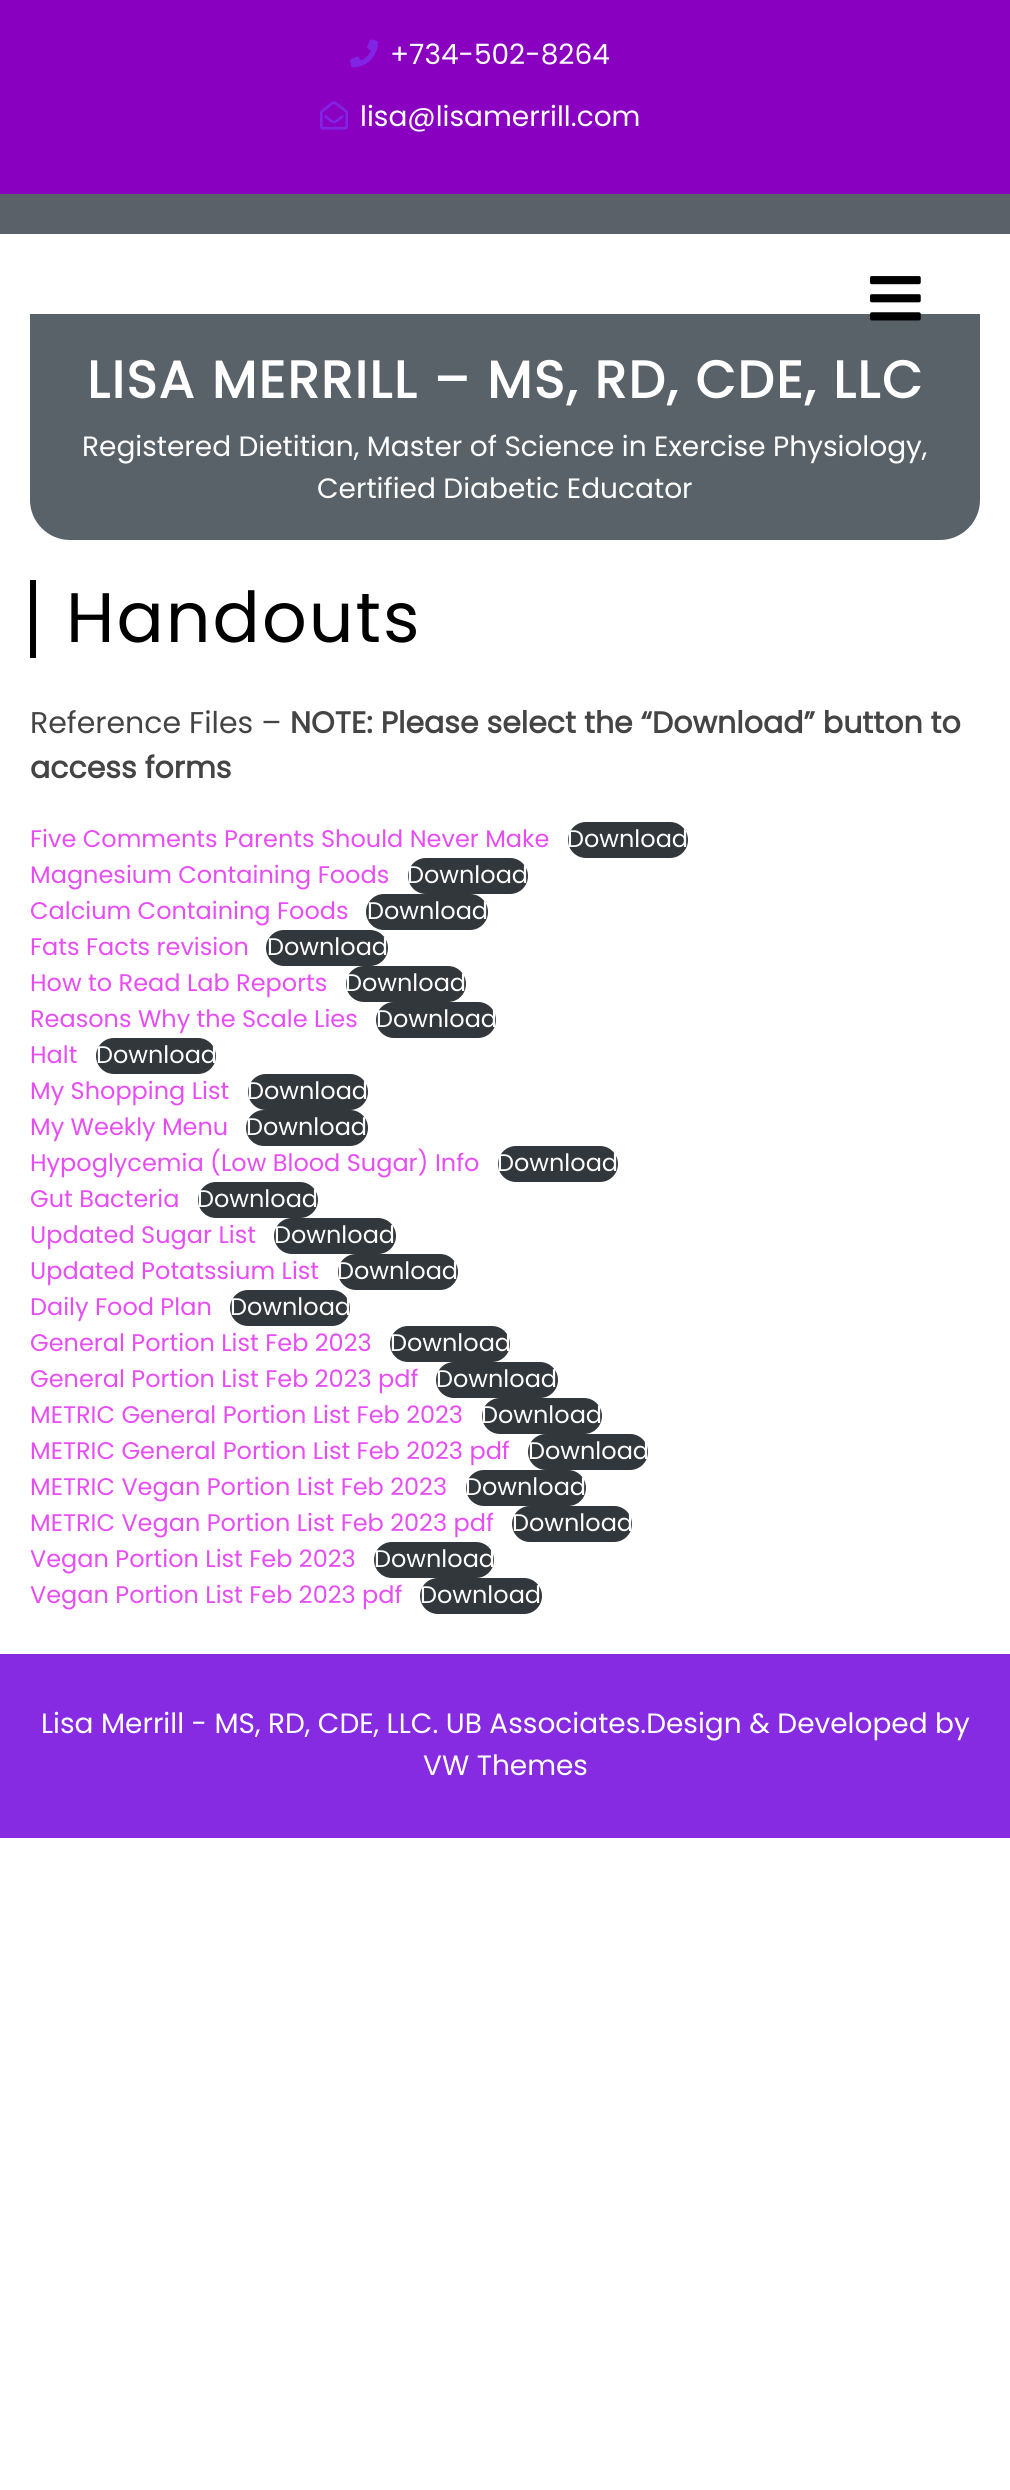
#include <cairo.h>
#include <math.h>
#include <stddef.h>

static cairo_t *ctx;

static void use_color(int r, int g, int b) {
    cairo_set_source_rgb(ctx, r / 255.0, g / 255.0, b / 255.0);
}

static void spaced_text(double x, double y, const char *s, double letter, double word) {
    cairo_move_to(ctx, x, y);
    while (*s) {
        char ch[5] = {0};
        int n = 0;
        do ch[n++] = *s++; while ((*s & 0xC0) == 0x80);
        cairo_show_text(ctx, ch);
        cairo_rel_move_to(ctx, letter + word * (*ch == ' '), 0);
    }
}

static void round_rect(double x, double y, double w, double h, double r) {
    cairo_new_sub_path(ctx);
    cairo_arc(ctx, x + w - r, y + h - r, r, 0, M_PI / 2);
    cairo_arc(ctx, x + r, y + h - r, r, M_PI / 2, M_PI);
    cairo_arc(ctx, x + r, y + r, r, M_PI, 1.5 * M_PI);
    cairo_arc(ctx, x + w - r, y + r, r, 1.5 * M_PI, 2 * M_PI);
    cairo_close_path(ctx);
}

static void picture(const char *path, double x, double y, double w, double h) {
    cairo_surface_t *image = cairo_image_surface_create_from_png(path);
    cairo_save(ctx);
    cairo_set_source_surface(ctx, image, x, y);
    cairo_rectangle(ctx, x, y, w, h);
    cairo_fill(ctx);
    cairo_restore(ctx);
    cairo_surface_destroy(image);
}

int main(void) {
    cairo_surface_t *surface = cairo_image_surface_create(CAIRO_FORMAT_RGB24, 1010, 2490);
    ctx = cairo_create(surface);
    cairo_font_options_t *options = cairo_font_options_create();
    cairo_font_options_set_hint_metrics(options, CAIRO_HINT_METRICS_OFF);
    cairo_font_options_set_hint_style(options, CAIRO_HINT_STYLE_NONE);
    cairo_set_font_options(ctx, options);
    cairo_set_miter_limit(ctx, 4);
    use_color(255, 255, 255);
    cairo_paint(ctx);
    use_color(138, 0, 193);
    cairo_rectangle(ctx, 0, 0, 1010, 194);
    cairo_fill(ctx);
    picture("img1.png", 350, 39, 28, 29);
    cairo_select_font_face(ctx, "Poppins", CAIRO_FONT_SLANT_NORMAL, CAIRO_FONT_WEIGHT_NORMAL);
    cairo_set_font_size(ctx, 28);
    use_color(255, 255, 255);
    cairo_move_to(ctx, 390, 64);
    cairo_show_text(ctx, "+734-502-8264");
    picture("img2.png", 320, 101, 28, 29);
    cairo_move_to(ctx, 360, 126);
    cairo_show_text(ctx, "lisa@lisamerrill.com");
    use_color(90, 97, 105);
    cairo_rectangle(ctx, 0, 194, 1010, 40);
    cairo_fill(ctx);
    use_color(90, 98, 105);
    cairo_new_path(ctx);
    cairo_move_to(ctx, 30, 314);
    cairo_line_to(ctx, 980, 314);
    cairo_line_to(ctx, 980, 500);
    cairo_curve_to(ctx, 980, 522, 962, 540, 940, 540);
    cairo_line_to(ctx, 70, 540);
    cairo_curve_to(ctx, 48, 540, 30, 522, 30, 500);
    cairo_close_path(ctx);
    cairo_fill(ctx);
    picture("img3.png", 870, 276, 51, 45);
    cairo_select_font_face(ctx, "Poppins", CAIRO_FONT_SLANT_NORMAL, CAIRO_FONT_WEIGHT_BOLD);
    cairo_set_font_size(ctx, 52);
    use_color(255, 255, 255);
    spaced_text(87, 398, "LISA MERRILL – MS, RD, CDE, LLC", 2, 0);
    cairo_select_font_face(ctx, "Poppins", CAIRO_FONT_SLANT_NORMAL, CAIRO_FONT_WEIGHT_NORMAL);
    cairo_set_font_size(ctx, 28);
    cairo_move_to(ctx, 82, 456);
    cairo_show_text(ctx, "Registered Dietitian, Master of Science in Exercise Physiology,");
    cairo_move_to(ctx, 317, 498);
    cairo_show_text(ctx, "Certified Diabetic Educator");
    use_color(0, 0, 0);
    cairo_rectangle(ctx, 30, 580, 6, 78);
    cairo_fill(ctx);
    cairo_set_font_size(ctx, 70);
    spaced_text(66, 642, "Handouts", 2, 0);
    cairo_set_font_size(ctx, 30);
    use_color(68, 68, 68);
    cairo_move_to(ctx, 30, 733);
    cairo_show_text(ctx, "Reference Files –");
    cairo_select_font_face(ctx, "Poppins", CAIRO_FONT_SLANT_NORMAL, CAIRO_FONT_WEIGHT_BOLD);
    cairo_move_to(ctx, 290, 733);
    cairo_show_text(ctx, "NOTE: Please select the “Download” button to");
    cairo_move_to(ctx, 30, 778);
    cairo_show_text(ctx, "access forms");
    cairo_select_font_face(ctx, "Poppins", CAIRO_FONT_SLANT_NORMAL, CAIRO_FONT_WEIGHT_NORMAL);
    cairo_set_font_size(ctx, 24);
    use_color(230, 78, 244);
    cairo_move_to(ctx, 30, 847);
    cairo_show_text(ctx, "Five Comments Parents Should Never Make");
    use_color(50, 55, 60);
    round_rect(568, 822, 120, 36, 18);
    cairo_fill(ctx);
    use_color(255, 255, 255);
    cairo_move_to(ctx, 567, 847);
    cairo_show_text(ctx, "Download");
    use_color(230, 78, 244);
    cairo_move_to(ctx, 30, 883);
    cairo_show_text(ctx, "Magnesium Containing Foods");
    use_color(50, 55, 60);
    round_rect(408, 858, 120, 36, 18);
    cairo_fill(ctx);
    use_color(255, 255, 255);
    cairo_move_to(ctx, 407, 883);
    cairo_show_text(ctx, "Download");
    use_color(230, 78, 244);
    cairo_move_to(ctx, 30, 919);
    cairo_show_text(ctx, "Calcium Containing Foods");
    use_color(50, 55, 60);
    round_rect(366, 894, 122, 36, 18);
    cairo_fill(ctx);
    use_color(255, 255, 255);
    cairo_move_to(ctx, 367, 919);
    cairo_show_text(ctx, "Download");
    use_color(230, 78, 244);
    cairo_move_to(ctx, 30, 955);
    cairo_show_text(ctx, "Fats Facts revision");
    use_color(50, 55, 60);
    round_rect(266, 930, 122, 36, 18);
    cairo_fill(ctx);
    use_color(255, 255, 255);
    cairo_move_to(ctx, 267, 955);
    cairo_show_text(ctx, "Download");
    use_color(230, 78, 244);
    cairo_move_to(ctx, 30, 991);
    cairo_show_text(ctx, "How to Read Lab Reports");
    use_color(50, 55, 60);
    round_rect(346, 966, 120, 36, 18);
    cairo_fill(ctx);
    use_color(255, 255, 255);
    cairo_move_to(ctx, 345, 991);
    cairo_show_text(ctx, "Download");
    use_color(230, 78, 244);
    cairo_move_to(ctx, 30, 1027);
    cairo_show_text(ctx, "Reasons Why the Scale Lies");
    use_color(50, 55, 60);
    round_rect(376, 1002, 120, 36, 18);
    cairo_fill(ctx);
    use_color(255, 255, 255);
    cairo_move_to(ctx, 376, 1027);
    cairo_show_text(ctx, "Download");
    use_color(230, 78, 244);
    cairo_move_to(ctx, 30, 1063);
    cairo_show_text(ctx, "Halt");
    use_color(50, 55, 60);
    round_rect(96, 1038, 120, 36, 18);
    cairo_fill(ctx);
    use_color(255, 255, 255);
    cairo_move_to(ctx, 96, 1063);
    cairo_show_text(ctx, "Download");
    use_color(230, 78, 244);
    cairo_move_to(ctx, 30, 1099);
    cairo_show_text(ctx, "My Shopping List");
    use_color(50, 55, 60);
    round_rect(248, 1074, 120, 36, 18);
    cairo_fill(ctx);
    use_color(255, 255, 255);
    cairo_move_to(ctx, 247, 1099);
    cairo_show_text(ctx, "Download");
    use_color(230, 78, 244);
    cairo_move_to(ctx, 30, 1135);
    cairo_show_text(ctx, "My Weekly Menu");
    use_color(50, 55, 60);
    round_rect(246, 1110, 122, 36, 18);
    cairo_fill(ctx);
    use_color(255, 255, 255);
    cairo_move_to(ctx, 246, 1135);
    cairo_show_text(ctx, "Download");
    use_color(230, 78, 244);
    cairo_move_to(ctx, 30, 1171);
    cairo_show_text(ctx, "Hypoglycemia (Low Blood Sugar) Info");
    use_color(50, 55, 60);
    round_rect(498, 1146, 120, 36, 18);
    cairo_fill(ctx);
    use_color(255, 255, 255);
    cairo_move_to(ctx, 497, 1171);
    cairo_show_text(ctx, "Download");
    use_color(230, 78, 244);
    cairo_move_to(ctx, 30, 1207);
    cairo_show_text(ctx, "Gut Bacteria");
    use_color(50, 55, 60);
    round_rect(198, 1182, 120, 36, 18);
    cairo_fill(ctx);
    use_color(255, 255, 255);
    cairo_move_to(ctx, 197, 1207);
    cairo_show_text(ctx, "Download");
    use_color(230, 78, 244);
    cairo_move_to(ctx, 30, 1243);
    cairo_show_text(ctx, "Updated Sugar List");
    use_color(50, 55, 60);
    round_rect(274, 1218, 122, 36, 18);
    cairo_fill(ctx);
    use_color(255, 255, 255);
    cairo_move_to(ctx, 274, 1243);
    cairo_show_text(ctx, "Download");
    use_color(230, 78, 244);
    cairo_move_to(ctx, 30, 1279);
    cairo_show_text(ctx, "Updated Potatssium List");
    use_color(50, 55, 60);
    round_rect(338, 1254, 120, 36, 18);
    cairo_fill(ctx);
    use_color(255, 255, 255);
    cairo_move_to(ctx, 337, 1279);
    cairo_show_text(ctx, "Download");
    use_color(230, 78, 244);
    cairo_move_to(ctx, 30, 1315);
    cairo_show_text(ctx, "Daily Food Plan");
    use_color(50, 55, 60);
    round_rect(230, 1290, 120, 36, 18);
    cairo_fill(ctx);
    use_color(255, 255, 255);
    cairo_move_to(ctx, 230, 1315);
    cairo_show_text(ctx, "Download");
    use_color(230, 78, 244);
    cairo_move_to(ctx, 30, 1351);
    cairo_show_text(ctx, "General Portion List Feb 2023");
    use_color(50, 55, 60);
    round_rect(390, 1326, 120, 36, 18);
    cairo_fill(ctx);
    use_color(255, 255, 255);
    cairo_move_to(ctx, 390, 1351);
    cairo_show_text(ctx, "Download");
    use_color(230, 78, 244);
    cairo_move_to(ctx, 30, 1387);
    cairo_show_text(ctx, "General Portion List Feb 2023 pdf");
    use_color(50, 55, 60);
    round_rect(436, 1362, 122, 36, 18);
    cairo_fill(ctx);
    use_color(255, 255, 255);
    cairo_move_to(ctx, 436, 1387);
    cairo_show_text(ctx, "Download");
    use_color(230, 78, 244);
    cairo_move_to(ctx, 30, 1423);
    cairo_show_text(ctx, "METRIC General Portion List Feb 2023");
    use_color(50, 55, 60);
    round_rect(482, 1398, 120, 36, 18);
    cairo_fill(ctx);
    use_color(255, 255, 255);
    cairo_move_to(ctx, 481, 1423);
    cairo_show_text(ctx, "Download");
    use_color(230, 78, 244);
    cairo_move_to(ctx, 30, 1459);
    cairo_show_text(ctx, "METRIC General Portion List Feb 2023 pdf");
    use_color(50, 55, 60);
    round_rect(528, 1434, 120, 36, 18);
    cairo_fill(ctx);
    use_color(255, 255, 255);
    cairo_move_to(ctx, 528, 1459);
    cairo_show_text(ctx, "Download");
    use_color(230, 78, 244);
    cairo_move_to(ctx, 30, 1495);
    cairo_show_text(ctx, "METRIC Vegan Portion List Feb 2023");
    use_color(50, 55, 60);
    round_rect(466, 1470, 120, 36, 18);
    cairo_fill(ctx);
    use_color(255, 255, 255);
    cairo_move_to(ctx, 465, 1495);
    cairo_show_text(ctx, "Download");
    use_color(230, 78, 244);
    cairo_move_to(ctx, 30, 1531);
    cairo_show_text(ctx, "METRIC Vegan Portion List Feb 2023 pdf");
    use_color(50, 55, 60);
    round_rect(512, 1506, 120, 36, 18);
    cairo_fill(ctx);
    use_color(255, 255, 255);
    cairo_move_to(ctx, 512, 1531);
    cairo_show_text(ctx, "Download");
    use_color(230, 78, 244);
    cairo_move_to(ctx, 30, 1567);
    cairo_show_text(ctx, "Vegan Portion List Feb 2023");
    use_color(50, 55, 60);
    round_rect(374, 1542, 120, 36, 18);
    cairo_fill(ctx);
    use_color(255, 255, 255);
    cairo_move_to(ctx, 374, 1567);
    cairo_show_text(ctx, "Download");
    use_color(230, 78, 244);
    cairo_move_to(ctx, 30, 1603);
    cairo_show_text(ctx, "Vegan Portion List Feb 2023 pdf");
    use_color(50, 55, 60);
    round_rect(420, 1578, 122, 36, 18);
    cairo_fill(ctx);
    use_color(255, 255, 255);
    cairo_move_to(ctx, 420, 1603);
    cairo_show_text(ctx, "Download");
    use_color(135, 43, 226);
    cairo_rectangle(ctx, 0, 1654, 1010, 184);
    cairo_fill(ctx);
    cairo_set_font_size(ctx, 28);
    use_color(255, 255, 255);
    cairo_move_to(ctx, 41, 1733);
    cairo_show_text(ctx, "Lisa Merrill - MS, RD, CDE, LLC. UB Associates.Design & Developed by");
    cairo_move_to(ctx, 423, 1775);
    cairo_show_text(ctx, "VW Themes");
    cairo_surface_write_to_png(surface, "result.png");
    cairo_font_options_destroy(options);
    cairo_destroy(ctx);
    cairo_surface_destroy(surface);
    return 0;
}
